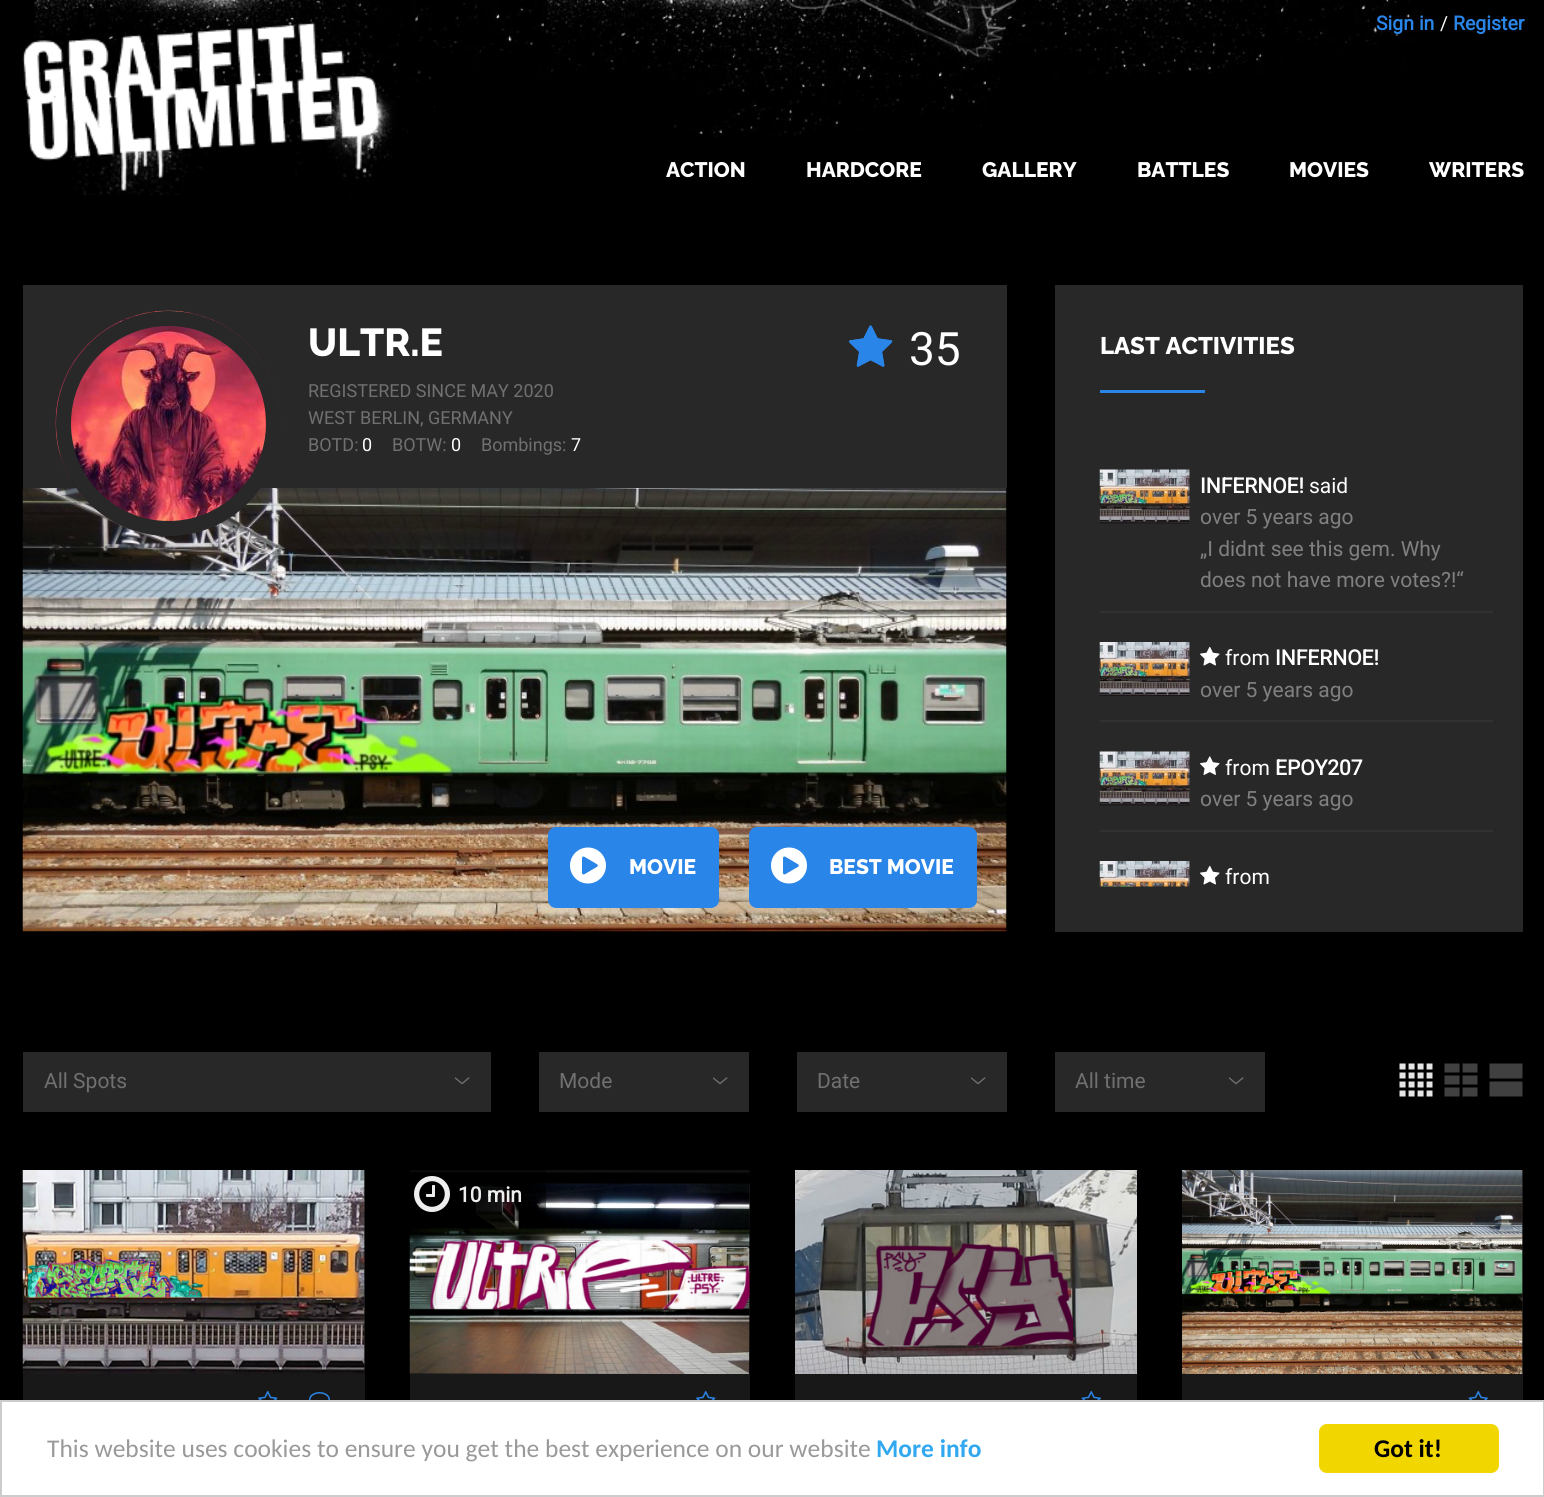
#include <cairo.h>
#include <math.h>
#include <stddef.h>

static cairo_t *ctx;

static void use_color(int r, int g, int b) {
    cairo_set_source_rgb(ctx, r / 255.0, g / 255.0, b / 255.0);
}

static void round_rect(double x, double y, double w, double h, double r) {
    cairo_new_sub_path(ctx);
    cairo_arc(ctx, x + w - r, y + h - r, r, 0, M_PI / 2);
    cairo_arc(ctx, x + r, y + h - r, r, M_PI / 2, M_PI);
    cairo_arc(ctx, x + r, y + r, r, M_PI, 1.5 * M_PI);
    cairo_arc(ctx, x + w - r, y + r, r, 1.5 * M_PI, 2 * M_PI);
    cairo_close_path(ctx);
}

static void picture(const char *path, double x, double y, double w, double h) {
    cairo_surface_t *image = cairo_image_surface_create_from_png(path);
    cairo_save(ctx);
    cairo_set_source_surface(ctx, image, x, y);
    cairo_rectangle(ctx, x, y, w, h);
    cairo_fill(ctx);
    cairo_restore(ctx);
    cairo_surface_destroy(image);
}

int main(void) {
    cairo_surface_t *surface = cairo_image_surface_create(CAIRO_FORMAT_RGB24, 1544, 1497);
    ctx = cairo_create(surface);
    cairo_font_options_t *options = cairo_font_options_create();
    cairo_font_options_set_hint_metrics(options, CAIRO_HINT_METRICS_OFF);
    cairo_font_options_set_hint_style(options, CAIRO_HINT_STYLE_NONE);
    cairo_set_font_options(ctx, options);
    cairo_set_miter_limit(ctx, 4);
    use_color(0, 0, 0);
    cairo_paint(ctx);
    picture("img1.png", 33, 0, 1390, 138);
    picture("img2.png", 22, 22, 413, 173);
    cairo_select_font_face(ctx, "Roboto", CAIRO_FONT_SLANT_NORMAL, CAIRO_FONT_WEIGHT_BOLD);
    cairo_set_font_size(ctx, 19.5);
    use_color(42, 133, 232);
    cairo_move_to(ctx, 1376, 30);
    cairo_show_text(ctx, "Sign in");
    cairo_select_font_face(ctx, "Roboto", CAIRO_FONT_SLANT_NORMAL, CAIRO_FONT_WEIGHT_NORMAL);
    use_color(255, 255, 255);
    cairo_move_to(ctx, 1440, 30);
    cairo_show_text(ctx, "/");
    cairo_select_font_face(ctx, "Roboto", CAIRO_FONT_SLANT_NORMAL, CAIRO_FONT_WEIGHT_BOLD);
    use_color(42, 133, 232);
    cairo_move_to(ctx, 1453, 30);
    cairo_show_text(ctx, "Register");
    cairo_select_font_face(ctx, "Raleway ExtraBold", CAIRO_FONT_SLANT_NORMAL, CAIRO_FONT_WEIGHT_NORMAL);
    cairo_set_font_size(ctx, 21);
    use_color(255, 255, 255);
    cairo_move_to(ctx, 666, 177);
    cairo_show_text(ctx, "ACTION");
    cairo_move_to(ctx, 806, 177);
    cairo_show_text(ctx, "HARDCORE");
    cairo_move_to(ctx, 982, 177);
    cairo_show_text(ctx, "GALLERY");
    cairo_move_to(ctx, 1137, 177);
    cairo_show_text(ctx, "BATTLES");
    cairo_move_to(ctx, 1289, 177);
    cairo_show_text(ctx, "MOVIES");
    cairo_move_to(ctx, 1429, 177);
    cairo_show_text(ctx, "WRITERS");
    picture("img6.png", 22, 487, 985, 445);
    use_color(40, 40, 40);
    cairo_rectangle(ctx, 23, 285, 984, 203);
    cairo_fill(ctx);
    picture("img3.png", 55, 310, 226, 226);
    cairo_arc(ctx, 168.5, 423.5, 105, 0, 2 * M_PI);
    cairo_set_line_width(ctx, 15);
    cairo_stroke(ctx);
    cairo_set_font_size(ctx, 39);
    use_color(255, 255, 255);
    cairo_move_to(ctx, 308, 356);
    cairo_show_text(ctx, "ULTR.E");
    picture("img4.png", 849, 325, 44, 42);
    picture("img5.png", 849, 325, 44, 42);
    cairo_select_font_face(ctx, "Roboto", CAIRO_FONT_SLANT_NORMAL, CAIRO_FONT_WEIGHT_NORMAL);
    cairo_set_font_size(ctx, 46);
    cairo_move_to(ctx, 909, 365);
    cairo_show_text(ctx, "35");
    cairo_set_font_size(ctx, 18);
    use_color(112, 112, 112);
    cairo_move_to(ctx, 308, 397);
    cairo_show_text(ctx, "REGISTERED SINCE MAY 2020");
    cairo_move_to(ctx, 308, 424);
    cairo_show_text(ctx, "WEST BERLIN, GERMANY");
    cairo_move_to(ctx, 308, 451);
    cairo_show_text(ctx, "BOTD:");
    use_color(255, 255, 255);
    cairo_move_to(ctx, 362, 451);
    cairo_show_text(ctx, "0");
    use_color(112, 112, 112);
    cairo_move_to(ctx, 392, 451);
    cairo_show_text(ctx, "BOTW:");
    use_color(255, 255, 255);
    cairo_move_to(ctx, 451, 451);
    cairo_show_text(ctx, "0");
    use_color(112, 112, 112);
    cairo_move_to(ctx, 481, 451);
    cairo_show_text(ctx, "Bombings:");
    use_color(255, 255, 255);
    cairo_move_to(ctx, 571, 451);
    cairo_show_text(ctx, "7");
    use_color(42, 133, 232);
    round_rect(548, 827, 171, 81, 8);
    cairo_fill(ctx);
    picture("img7.png", 570, 847, 36, 37);
    cairo_select_font_face(ctx, "Raleway ExtraBold", CAIRO_FONT_SLANT_NORMAL, CAIRO_FONT_WEIGHT_NORMAL);
    cairo_set_font_size(ctx, 21);
    use_color(255, 255, 255);
    cairo_move_to(ctx, 629, 874);
    cairo_show_text(ctx, "MOVIE");
    use_color(42, 133, 232);
    round_rect(749, 827, 228, 81, 8);
    cairo_fill(ctx);
    picture("img7.png", 771, 847, 36, 37);
    use_color(255, 255, 255);
    cairo_move_to(ctx, 829, 874);
    cairo_show_text(ctx, "BEST MOVIE");
    use_color(40, 40, 40);
    cairo_rectangle(ctx, 1055, 285, 468, 647);
    cairo_fill(ctx);
    cairo_set_font_size(ctx, 24);
    use_color(255, 255, 255);
    cairo_move_to(ctx, 1100, 354);
    cairo_show_text(ctx, "LAST ACTIVITIES");
    use_color(42, 133, 232);
    cairo_rectangle(ctx, 1100, 390, 105, 3);
    cairo_fill(ctx);
    use_color(49, 49, 49);
    cairo_rectangle(ctx, 1100, 611, 393, 2);
    cairo_fill(ctx);
    picture("img8.png", 1099, 469, 91, 55);
    cairo_select_font_face(ctx, "Roboto", CAIRO_FONT_SLANT_NORMAL, CAIRO_FONT_WEIGHT_BOLD);
    cairo_set_font_size(ctx, 21);
    use_color(255, 255, 255);
    cairo_move_to(ctx, 1200, 493);
    cairo_show_text(ctx, "INFERNOE!");
    cairo_select_font_face(ctx, "Roboto", CAIRO_FONT_SLANT_NORMAL, CAIRO_FONT_WEIGHT_NORMAL);
    cairo_move_to(ctx, 1309, 493);
    cairo_show_text(ctx, "said");
    use_color(128, 128, 128);
    cairo_move_to(ctx, 1200, 524);
    cairo_show_text(ctx, "over 5 years ago");
    cairo_move_to(ctx, 1200, 556);
    cairo_show_text(ctx, "„I didnt see this gem. Why");
    cairo_move_to(ctx, 1200, 587);
    cairo_show_text(ctx, "does not have more votes?!“");
    use_color(49, 49, 49);
    cairo_rectangle(ctx, 1100, 720, 393, 2);
    cairo_fill(ctx);
    picture("img9.png", 1099, 642, 91, 54);
    picture("img10.png", 1200, 646, 20, 20);
    use_color(255, 255, 255);
    cairo_move_to(ctx, 1225, 665);
    cairo_show_text(ctx, "from");
    cairo_select_font_face(ctx, "Roboto", CAIRO_FONT_SLANT_NORMAL, CAIRO_FONT_WEIGHT_BOLD);
    cairo_move_to(ctx, 1275, 665);
    cairo_show_text(ctx, "INFERNOE!");
    cairo_select_font_face(ctx, "Roboto", CAIRO_FONT_SLANT_NORMAL, CAIRO_FONT_WEIGHT_NORMAL);
    use_color(128, 128, 128);
    cairo_move_to(ctx, 1200, 697);
    cairo_show_text(ctx, "over 5 years ago");
    use_color(49, 49, 49);
    cairo_rectangle(ctx, 1100, 830, 393, 2);
    cairo_fill(ctx);
    picture("img8.png", 1099, 751, 91, 55);
    picture("img11.png", 1200, 756, 20, 19);
    use_color(255, 255, 255);
    cairo_move_to(ctx, 1225, 775);
    cairo_show_text(ctx, "from");
    cairo_select_font_face(ctx, "Roboto", CAIRO_FONT_SLANT_NORMAL, CAIRO_FONT_WEIGHT_BOLD);
    cairo_move_to(ctx, 1275, 775);
    cairo_show_text(ctx, "EPOY207");
    cairo_select_font_face(ctx, "Roboto", CAIRO_FONT_SLANT_NORMAL, CAIRO_FONT_WEIGHT_NORMAL);
    use_color(128, 128, 128);
    cairo_move_to(ctx, 1200, 806);
    cairo_show_text(ctx, "over 5 years ago");
    picture("img12.png", 1099, 861, 91, 26);
    picture("img10.png", 1200, 865, 20, 20);
    use_color(255, 255, 255);
    cairo_move_to(ctx, 1225, 884);
    cairo_show_text(ctx, "from");
    use_color(40, 40, 40);
    cairo_rectangle(ctx, 23, 1052, 468, 60);
    cairo_fill(ctx);
    picture("img13.png", 455, 1077, 15, 8);
    use_color(112, 112, 112);
    cairo_move_to(ctx, 44, 1088);
    cairo_show_text(ctx, "All Spots");
    use_color(40, 40, 40);
    cairo_rectangle(ctx, 539, 1052, 210, 60);
    cairo_fill(ctx);
    picture("img13.png", 713, 1077, 15, 8);
    use_color(112, 112, 112);
    cairo_move_to(ctx, 559, 1088);
    cairo_show_text(ctx, "Mode");
    use_color(40, 40, 40);
    cairo_rectangle(ctx, 797, 1052, 210, 60);
    cairo_fill(ctx);
    picture("img13.png", 971, 1077, 15, 8);
    use_color(112, 112, 112);
    cairo_move_to(ctx, 817, 1088);
    cairo_show_text(ctx, "Date");
    use_color(40, 40, 40);
    cairo_rectangle(ctx, 1055, 1052, 210, 60);
    cairo_fill(ctx);
    picture("img13.png", 1229, 1077, 15, 8);
    use_color(112, 112, 112);
    cairo_move_to(ctx, 1075, 1088);
    cairo_show_text(ctx, "All time");
    picture("img14.png", 1399, 1063, 34, 34);
    picture("img15.png", 1444, 1063, 34, 34);
    picture("img16.png", 1489, 1063, 34, 34);
    use_color(24, 24, 24);
    cairo_rectangle(ctx, 23, 1170, 342, 230);
    cairo_fill(ctx);
    picture("img17.png", 22, 1170, 343, 204);
    picture("img18.png", 258, 1390, 20, 10);
    picture("img19.png", 309, 1392, 21, 8);
    cairo_rectangle(ctx, 410, 1374, 340, 26);
    cairo_fill(ctx);
    picture("img20.png", 409, 1170, 341, 204);
    cairo_set_source_rgba(ctx, 0, 0, 0, 0.45);
    cairo_rectangle(ctx, 410, 1170, 136, 51);
    cairo_fill(ctx);
    picture("img21.png", 414, 1176, 36, 36);
    cairo_select_font_face(ctx, "Roboto", CAIRO_FONT_SLANT_NORMAL, CAIRO_FONT_WEIGHT_BOLD);
    use_color(238, 238, 238);
    cairo_move_to(ctx, 458, 1202);
    cairo_show_text(ctx, "10 min");
    picture("img18.png", 696, 1390, 20, 10);
    use_color(24, 24, 24);
    cairo_rectangle(ctx, 795, 1374, 342, 26);
    cairo_fill(ctx);
    picture("img22.png", 795, 1170, 342, 204);
    picture("img23.png", 1081, 1390, 20, 10);
    cairo_rectangle(ctx, 1182, 1170, 341, 230);
    cairo_fill(ctx);
    picture("img24.png", 1182, 1170, 341, 204);
    picture("img23.png", 1468, 1390, 20, 10);
    use_color(255, 255, 255);
    cairo_rectangle(ctx, 1, 1401, 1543, 95);
    cairo_fill_preserve(ctx);
    use_color(204, 204, 204);
    cairo_set_line_width(ctx, 2);
    cairo_stroke(ctx);
    cairo_select_font_face(ctx, "Carlito", CAIRO_FONT_SLANT_NORMAL, CAIRO_FONT_WEIGHT_NORMAL);
    cairo_set_font_size(ctx, 25.5);
    use_color(153, 153, 153);
    cairo_move_to(ctx, 47, 1457);
    cairo_show_text(ctx, "This website uses cookies to ensure you get the best experience on our website");
    cairo_select_font_face(ctx, "Carlito", CAIRO_FONT_SLANT_NORMAL, CAIRO_FONT_WEIGHT_BOLD);
    use_color(49, 168, 240);
    cairo_move_to(ctx, 876, 1457);
    cairo_show_text(ctx, "More info");
    use_color(241, 214, 0);
    round_rect(1319, 1424, 180, 49, 8);
    cairo_fill(ctx);
    use_color(0, 0, 0);
    cairo_move_to(ctx, 1374, 1457);
    cairo_show_text(ctx, "Got it!");
    cairo_surface_write_to_png(surface, "result.png");
    cairo_font_options_destroy(options);
    cairo_destroy(ctx);
    cairo_surface_destroy(surface);
    return 0;
}
